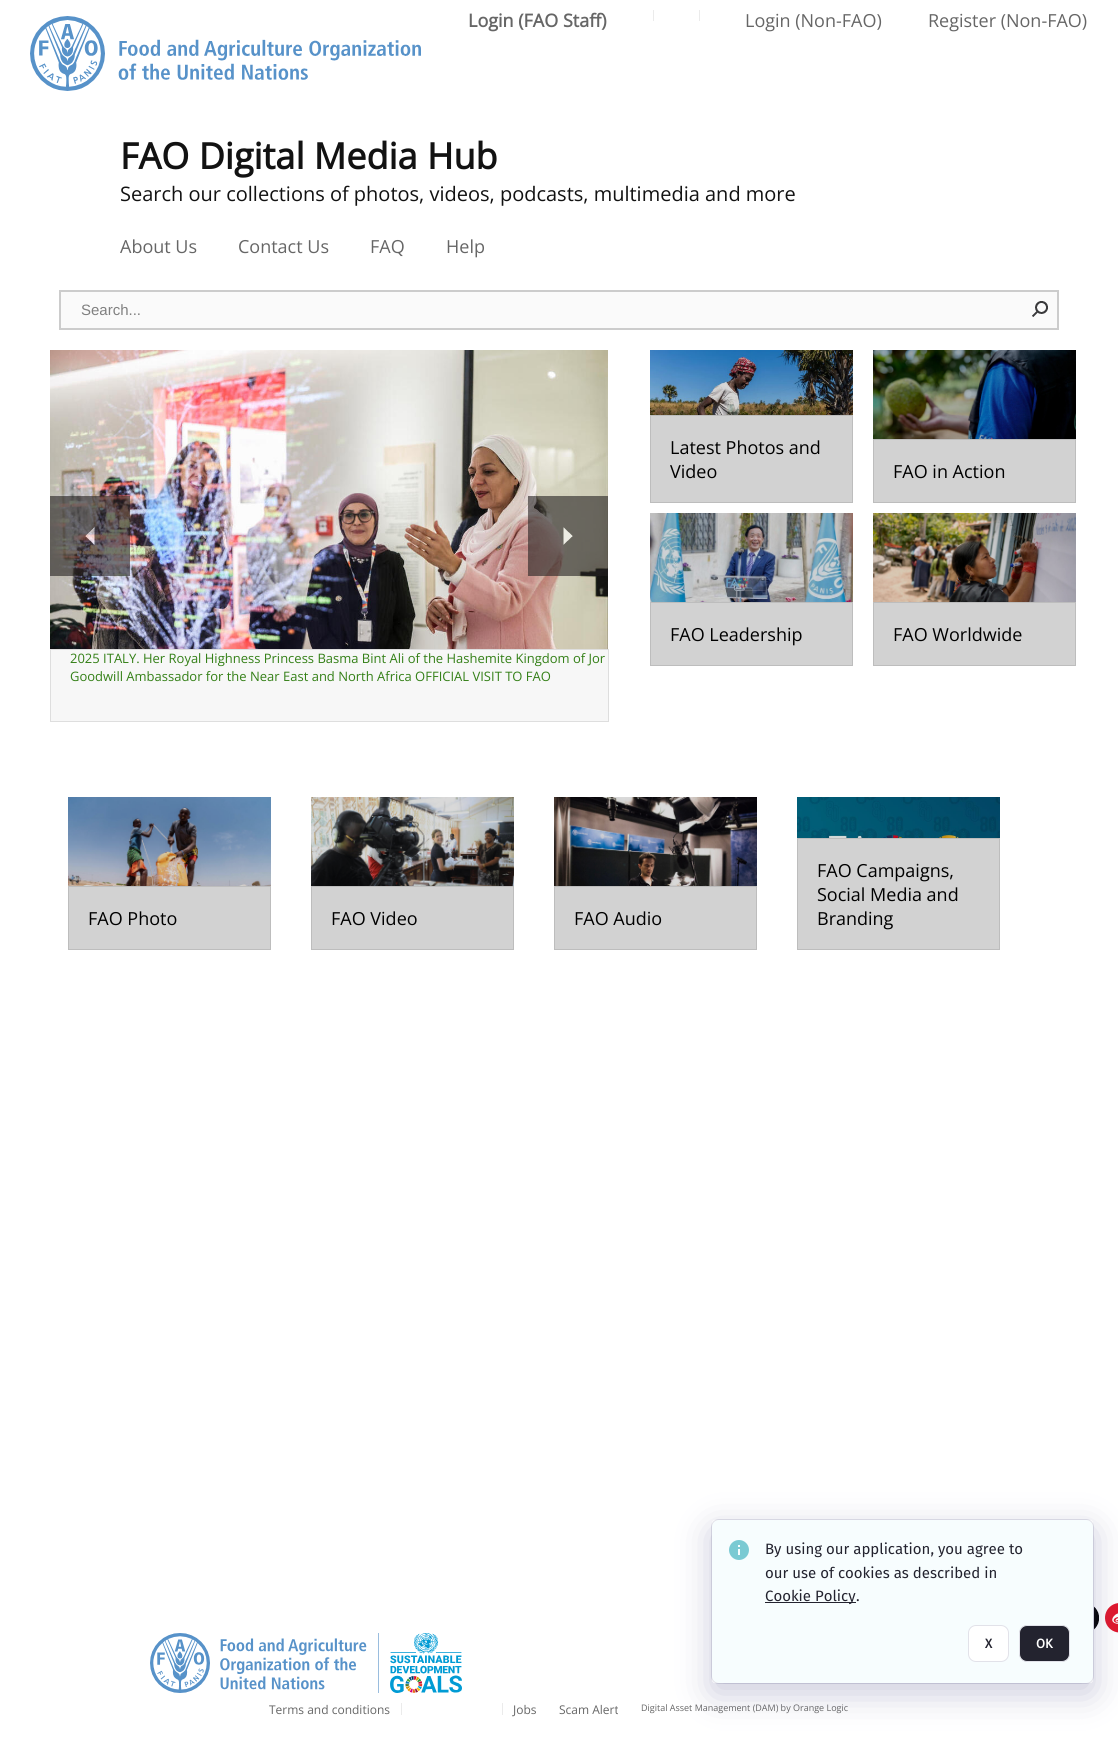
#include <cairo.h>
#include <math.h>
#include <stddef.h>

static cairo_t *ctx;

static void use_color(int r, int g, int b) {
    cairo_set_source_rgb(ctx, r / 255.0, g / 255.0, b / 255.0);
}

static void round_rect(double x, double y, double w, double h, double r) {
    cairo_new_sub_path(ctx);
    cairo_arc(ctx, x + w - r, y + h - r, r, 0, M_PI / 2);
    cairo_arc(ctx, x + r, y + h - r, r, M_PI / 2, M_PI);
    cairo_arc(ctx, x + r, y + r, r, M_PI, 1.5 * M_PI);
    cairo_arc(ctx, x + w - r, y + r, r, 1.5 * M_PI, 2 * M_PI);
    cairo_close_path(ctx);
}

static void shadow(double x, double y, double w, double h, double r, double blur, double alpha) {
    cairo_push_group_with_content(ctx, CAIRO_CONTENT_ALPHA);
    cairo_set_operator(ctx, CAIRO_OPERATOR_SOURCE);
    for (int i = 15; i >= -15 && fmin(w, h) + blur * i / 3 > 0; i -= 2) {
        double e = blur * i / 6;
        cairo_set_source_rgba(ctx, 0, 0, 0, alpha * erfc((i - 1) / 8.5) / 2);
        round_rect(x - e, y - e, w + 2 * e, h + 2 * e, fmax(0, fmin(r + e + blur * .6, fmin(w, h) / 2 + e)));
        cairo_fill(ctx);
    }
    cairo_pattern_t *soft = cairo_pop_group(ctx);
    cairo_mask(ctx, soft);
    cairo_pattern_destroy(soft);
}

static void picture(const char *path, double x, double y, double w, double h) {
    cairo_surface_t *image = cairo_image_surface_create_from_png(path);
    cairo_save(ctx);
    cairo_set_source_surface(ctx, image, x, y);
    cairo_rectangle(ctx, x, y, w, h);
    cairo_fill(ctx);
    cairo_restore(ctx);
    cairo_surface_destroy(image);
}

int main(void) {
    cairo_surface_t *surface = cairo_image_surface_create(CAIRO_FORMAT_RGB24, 1118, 1753);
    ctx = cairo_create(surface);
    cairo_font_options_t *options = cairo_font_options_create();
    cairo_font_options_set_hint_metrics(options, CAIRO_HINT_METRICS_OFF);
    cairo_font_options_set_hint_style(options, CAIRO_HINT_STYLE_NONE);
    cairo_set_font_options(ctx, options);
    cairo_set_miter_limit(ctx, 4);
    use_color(255, 255, 255);
    cairo_paint(ctx);
    picture("img1.png", 30, 16, 391, 75);
    cairo_select_font_face(ctx, "Open Sans", CAIRO_FONT_SLANT_NORMAL, CAIRO_FONT_WEIGHT_BOLD);
    cairo_set_font_size(ctx, 18);
    use_color(102, 102, 102);
    cairo_move_to(ctx, 468, 27);
    cairo_show_text(ctx, "Login (FAO Staff)");
    use_color(235, 235, 235);
    cairo_rectangle(ctx, 653, 10, 1, 11);
    cairo_fill(ctx);
    cairo_rectangle(ctx, 699, 10, 1, 11);
    cairo_fill(ctx);
    cairo_select_font_face(ctx, "Open Sans", CAIRO_FONT_SLANT_NORMAL, CAIRO_FONT_WEIGHT_NORMAL);
    use_color(102, 102, 102);
    cairo_move_to(ctx, 745, 27);
    cairo_show_text(ctx, "Login (Non-FAO)");
    cairo_move_to(ctx, 928, 27);
    cairo_show_text(ctx, "Register (Non-FAO)");
    cairo_select_font_face(ctx, "Open Sans", CAIRO_FONT_SLANT_NORMAL, CAIRO_FONT_WEIGHT_BOLD);
    cairo_set_font_size(ctx, 36);
    use_color(18, 18, 18);
    cairo_move_to(ctx, 120, 169);
    cairo_show_text(ctx, "FAO Digital Media Hub");
    cairo_select_font_face(ctx, "Open Sans", CAIRO_FONT_SLANT_NORMAL, CAIRO_FONT_WEIGHT_NORMAL);
    cairo_set_font_size(ctx, 20);
    cairo_move_to(ctx, 120, 201);
    cairo_show_text(ctx, "Search our collections of photos, videos, podcasts, multimedia and more");
    cairo_set_font_size(ctx, 18);
    use_color(102, 102, 102);
    cairo_move_to(ctx, 120, 253);
    cairo_show_text(ctx, "About Us");
    cairo_move_to(ctx, 238, 253);
    cairo_show_text(ctx, "Contact Us");
    cairo_move_to(ctx, 370, 253);
    cairo_show_text(ctx, "FAQ");
    cairo_move_to(ctx, 446, 253);
    cairo_show_text(ctx, "Help");
    use_color(250, 250, 250);
    cairo_rectangle(ctx, 60, 291, 998, 38);
    cairo_fill_preserve(ctx);
    use_color(204, 204, 204);
    cairo_stroke(ctx);
    cairo_select_font_face(ctx, "Liberation Sans", CAIRO_FONT_SLANT_NORMAL, CAIRO_FONT_WEIGHT_NORMAL);
    cairo_set_font_size(ctx, 15);
    use_color(128, 128, 128);
    cairo_move_to(ctx, 81, 315);
    cairo_show_text(ctx, "Search...");
    picture("img2.png", 1032, 301, 16, 16);
    picture("img3.png", 650, 350, 203, 65);
    use_color(210, 210, 210);
    cairo_rectangle(ctx, 650.5, 415.5, 202, 87);
    cairo_fill_preserve(ctx);
    use_color(189, 189, 189);
    cairo_set_line_width(ctx, 1);
    cairo_stroke(ctx);
    cairo_select_font_face(ctx, "Open Sans", CAIRO_FONT_SLANT_NORMAL, CAIRO_FONT_WEIGHT_NORMAL);
    cairo_set_font_size(ctx, 18);
    use_color(0, 0, 0);
    cairo_move_to(ctx, 670, 454);
    cairo_show_text(ctx, "Latest Photos and");
    cairo_move_to(ctx, 670, 478);
    cairo_show_text(ctx, "Video");
    picture("img4.png", 873, 350, 203, 89);
    use_color(210, 210, 210);
    cairo_rectangle(ctx, 873.5, 439.5, 202, 63);
    cairo_fill_preserve(ctx);
    use_color(189, 189, 189);
    cairo_stroke(ctx);
    use_color(0, 0, 0);
    cairo_move_to(ctx, 893, 478);
    cairo_show_text(ctx, "FAO in Action");
    picture("img5.png", 650, 513, 203, 89);
    use_color(210, 210, 210);
    cairo_rectangle(ctx, 650.5, 602.5, 202, 63);
    cairo_fill_preserve(ctx);
    use_color(189, 189, 189);
    cairo_stroke(ctx);
    use_color(0, 0, 0);
    cairo_move_to(ctx, 670, 641);
    cairo_show_text(ctx, "FAO Leadership");
    picture("img6.png", 873, 513, 203, 89);
    use_color(210, 210, 210);
    cairo_rectangle(ctx, 873.5, 602.5, 202, 63);
    cairo_fill_preserve(ctx);
    use_color(189, 189, 189);
    cairo_stroke(ctx);
    use_color(0, 0, 0);
    cairo_move_to(ctx, 893, 641);
    cairo_show_text(ctx, "FAO Worldwide");
    picture("img9.png", 50, 350, 558, 299);
    picture("img7.png", 50, 496, 80, 80);
    picture("img8.png", 528, 496, 80, 80);
    use_color(247, 247, 247);
    cairo_rectangle(ctx, 50.5, 649.5, 558, 72);
    cairo_fill_preserve(ctx);
    use_color(222, 222, 222);
    cairo_stroke(ctx);
    cairo_set_font_size(ctx, 13);
    use_color(52, 128, 23);
    cairo_move_to(ctx, 70, 663);
    cairo_show_text(ctx, "2025 ITALY. Her Royal Highness Princess Basma Bint Ali of the Hashemite Kingdom of Jor");
    cairo_move_to(ctx, 70, 681);
    cairo_show_text(ctx, "Goodwill Ambassador for the Near East and North Africa OFFICIAL VISIT TO FAO");
    picture("img10.png", 68, 797, 203, 89);
    use_color(210, 210, 210);
    cairo_rectangle(ctx, 68.5, 886.5, 202, 63);
    cairo_fill_preserve(ctx);
    use_color(189, 189, 189);
    cairo_stroke(ctx);
    cairo_set_font_size(ctx, 18);
    use_color(0, 0, 0);
    cairo_move_to(ctx, 88, 925);
    cairo_show_text(ctx, "FAO Photo");
    picture("img11.png", 311, 797, 203, 89);
    use_color(210, 210, 210);
    cairo_rectangle(ctx, 311.5, 886.5, 202, 63);
    cairo_fill_preserve(ctx);
    use_color(189, 189, 189);
    cairo_stroke(ctx);
    use_color(0, 0, 0);
    cairo_move_to(ctx, 331, 925);
    cairo_show_text(ctx, "FAO Video");
    picture("img12.png", 554, 797, 203, 89);
    use_color(210, 210, 210);
    cairo_rectangle(ctx, 554.5, 886.5, 202, 63);
    cairo_fill_preserve(ctx);
    use_color(189, 189, 189);
    cairo_stroke(ctx);
    use_color(0, 0, 0);
    cairo_move_to(ctx, 574, 925);
    cairo_show_text(ctx, "FAO Audio");
    picture("img13.png", 797, 797, 203, 41);
    use_color(210, 210, 210);
    cairo_rectangle(ctx, 797.5, 838.5, 202, 111);
    cairo_fill_preserve(ctx);
    use_color(189, 189, 189);
    cairo_stroke(ctx);
    use_color(0, 0, 0);
    cairo_move_to(ctx, 817, 877);
    cairo_show_text(ctx, "FAO Campaigns,");
    cairo_move_to(ctx, 817, 901);
    cairo_show_text(ctx, "Social Media and");
    cairo_move_to(ctx, 817, 925);
    cairo_show_text(ctx, "Branding");
    picture("img14.png", 1094, 1606, 5, 24);
    picture("img15.png", 1105, 1603, 13, 30);
    picture("img16.png", 150, 1633, 312, 60);
    cairo_set_font_size(ctx, 12);
    use_color(102, 102, 102);
    cairo_move_to(ctx, 269, 1714);
    cairo_show_text(ctx, "Terms and conditions");
    use_color(235, 235, 235);
    cairo_rectangle(ctx, 401, 1703, 1, 12);
    cairo_fill(ctx);
    cairo_rectangle(ctx, 502, 1703, 1, 12);
    cairo_fill(ctx);
    use_color(102, 102, 102);
    cairo_move_to(ctx, 513, 1714);
    cairo_show_text(ctx, "Jobs");
    cairo_move_to(ctx, 559, 1714);
    cairo_show_text(ctx, "Scam Alert");
    cairo_set_font_size(ctx, 9);
    cairo_move_to(ctx, 641, 1711);
    cairo_show_text(ctx, "Digital Asset Management (DAM) by Orange Logic");
    use_color(247, 253, 254);
    round_rect(711.5, 1519.5, 382, 164, 7.5);
    cairo_fill_preserve(ctx);
    use_color(226, 226, 233);
    cairo_stroke(ctx);
    cairo_save(ctx);
    cairo_set_fill_rule(ctx, CAIRO_FILL_RULE_EVEN_ODD);
    cairo_new_path(ctx);
    cairo_move_to(ctx, 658, 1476);
    cairo_line_to(ctx, 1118, 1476);
    cairo_line_to(ctx, 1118, 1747);
    cairo_line_to(ctx, 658, 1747);
    cairo_close_path(ctx);
    cairo_move_to(ctx, 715, 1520);
    cairo_line_to(ctx, 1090, 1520);
    cairo_curve_to(ctx, 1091.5, 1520, 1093, 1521.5, 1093, 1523);
    cairo_line_to(ctx, 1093, 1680);
    cairo_curve_to(ctx, 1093, 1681.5, 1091.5, 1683, 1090, 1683);
    cairo_line_to(ctx, 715, 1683);
    cairo_curve_to(ctx, 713.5, 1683, 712, 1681.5, 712, 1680);
    cairo_line_to(ctx, 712, 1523);
    cairo_curve_to(ctx, 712, 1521.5, 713.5, 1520, 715, 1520);
    cairo_close_path(ctx);
    cairo_clip(ctx);
    use_color(77, 77, 135);
    shadow(712, 1530, 381, 163, 3, 17.5, 0.3);
    cairo_restore(ctx);
    picture("img17.png", 729, 1540, 20, 20);
    cairo_select_font_face(ctx, "Fira Sans", CAIRO_FONT_SLANT_NORMAL, CAIRO_FONT_WEIGHT_NORMAL);
    cairo_set_font_size(ctx, 15);
    use_color(35, 35, 47);
    cairo_move_to(ctx, 765, 1554);
    cairo_show_text(ctx, "By using our application, you agree to");
    cairo_move_to(ctx, 765, 1578);
    cairo_show_text(ctx, "our use of cookies as described in");
    cairo_rectangle(ctx, 765, 1602, 91, 1);
    cairo_fill(ctx);
    cairo_move_to(ctx, 765, 1601);
    cairo_show_text(ctx, "Cookie Policy");
    cairo_move_to(ctx, 856, 1601);
    cairo_show_text(ctx, ".");
    use_color(255, 255, 255);
    round_rect(968.5, 1625.5, 40, 36, 7.5);
    cairo_fill_preserve(ctx);
    use_color(226, 226, 233);
    cairo_stroke(ctx);
    cairo_select_font_face(ctx, "Fira Sans", CAIRO_FONT_SLANT_NORMAL, CAIRO_FONT_WEIGHT_BOLD);
    cairo_set_font_size(ctx, 13);
    use_color(35, 35, 47);
    cairo_move_to(ctx, 985, 1648);
    cairo_show_text(ctx, "X");
    round_rect(1019.5, 1625.5, 50, 36, 7.5);
    cairo_fill_preserve(ctx);
    use_color(226, 226, 233);
    cairo_stroke(ctx);
    use_color(255, 255, 255);
    cairo_move_to(ctx, 1036, 1648);
    cairo_show_text(ctx, "OK");
    cairo_surface_write_to_png(surface, "result.png");
    cairo_font_options_destroy(options);
    cairo_destroy(ctx);
    cairo_surface_destroy(surface);
    return 0;
}
